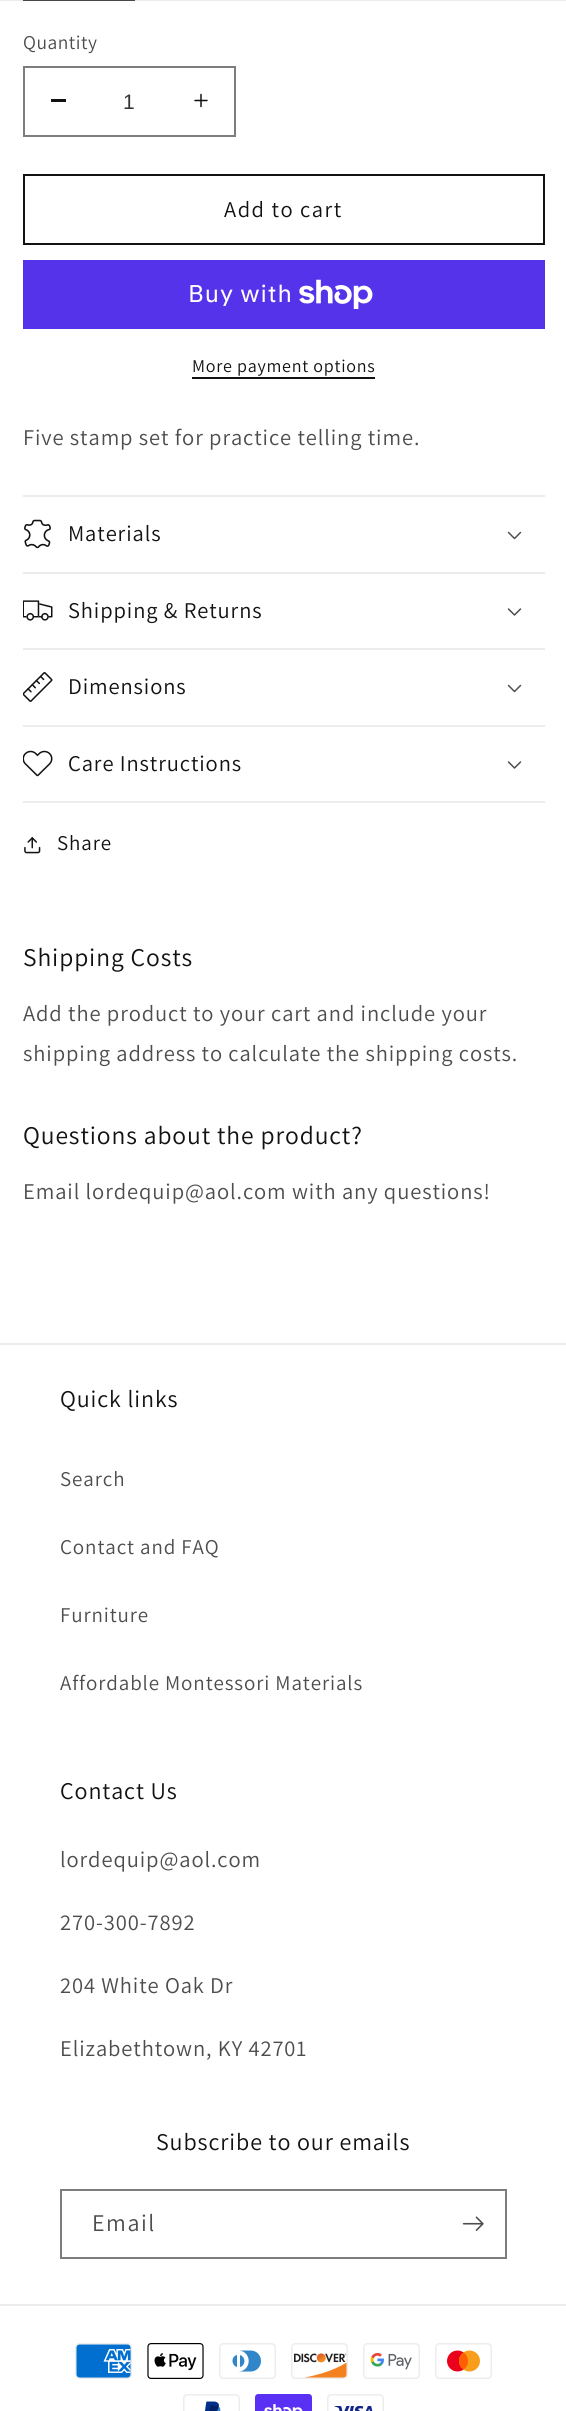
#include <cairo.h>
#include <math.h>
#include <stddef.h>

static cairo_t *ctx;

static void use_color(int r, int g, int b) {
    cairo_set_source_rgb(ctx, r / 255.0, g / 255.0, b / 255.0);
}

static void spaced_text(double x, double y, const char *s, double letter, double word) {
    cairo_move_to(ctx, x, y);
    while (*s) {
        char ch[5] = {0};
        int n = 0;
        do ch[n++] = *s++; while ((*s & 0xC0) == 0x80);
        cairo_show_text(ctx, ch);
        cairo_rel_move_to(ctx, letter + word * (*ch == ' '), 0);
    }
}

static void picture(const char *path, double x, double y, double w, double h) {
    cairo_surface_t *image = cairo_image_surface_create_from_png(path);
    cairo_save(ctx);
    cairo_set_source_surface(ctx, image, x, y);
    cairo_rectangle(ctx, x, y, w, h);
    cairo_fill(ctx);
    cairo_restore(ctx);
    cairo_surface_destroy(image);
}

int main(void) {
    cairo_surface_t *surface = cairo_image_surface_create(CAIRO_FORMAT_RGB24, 566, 2411);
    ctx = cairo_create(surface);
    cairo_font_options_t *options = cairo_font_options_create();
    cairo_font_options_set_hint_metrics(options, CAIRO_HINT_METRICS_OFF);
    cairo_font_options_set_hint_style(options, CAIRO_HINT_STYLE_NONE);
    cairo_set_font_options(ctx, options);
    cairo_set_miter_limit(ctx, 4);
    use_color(255, 255, 255);
    cairo_paint(ctx);
    use_color(236, 236, 236);
    cairo_rectangle(ctx, 0, 0, 566, 1);
    cairo_fill(ctx);
    use_color(72, 72, 72);
    cairo_rectangle(ctx, 23, 0, 112, 1);
    cairo_fill(ctx);
    cairo_select_font_face(ctx, "Assistant", CAIRO_FONT_SLANT_NORMAL, CAIRO_FONT_WEIGHT_NORMAL);
    cairo_set_font_size(ctx, 19.5);
    use_color(77, 77, 77);
    spaced_text(23, 49, "Quantity", 0.5, 0);
    use_color(18, 18, 18);
    cairo_rectangle(ctx, 51, 99, 15, 3);
    cairo_fill(ctx);
    picture("img1.png", 194, 93, 14, 15);
    cairo_rectangle(ctx, 24, 67, 211, 69);
    use_color(125, 125, 125);
    cairo_stroke(ctx);
    cairo_select_font_face(ctx, "Liberation Sans", CAIRO_FONT_SLANT_NORMAL, CAIRO_FONT_WEIGHT_NORMAL);
    cairo_set_font_size(ctx, 21);
    use_color(54, 54, 54);
    cairo_move_to(ctx, 123, 109);
    cairo_show_text(ctx, "1");
    cairo_rectangle(ctx, 24, 175, 520, 69);
    use_color(18, 18, 18);
    cairo_stroke(ctx);
    cairo_select_font_face(ctx, "Assistant", CAIRO_FONT_SLANT_NORMAL, CAIRO_FONT_WEIGHT_NORMAL);
    cairo_set_font_size(ctx, 22.5);
    spaced_text(224, 217, "Add to cart", 1.5, 0);
    use_color(84, 51, 235);
    cairo_rectangle(ctx, 23, 260, 522, 69);
    cairo_fill(ctx);
    cairo_select_font_face(ctx, "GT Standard", CAIRO_FONT_SLANT_NORMAL, CAIRO_FONT_WEIGHT_NORMAL);
    cairo_set_font_size(ctx, 24);
    use_color(255, 255, 255);
    spaced_text(188, 302, "Buy with", 0.9, 0);
    picture("img2.png", 299, 279, 74, 30);
    cairo_select_font_face(ctx, "Assistant", CAIRO_FONT_SLANT_NORMAL, CAIRO_FONT_WEIGHT_NORMAL);
    cairo_set_font_size(ctx, 18);
    use_color(18, 18, 18);
    spaced_text(192, 372, "More payment options", 0.75, 0);
    cairo_rectangle(ctx, 192, 377, 183, 2);
    cairo_fill(ctx);
    cairo_set_font_size(ctx, 22.5);
    use_color(77, 77, 77);
    spaced_text(23, 445, "Five stamp set for practice telling time.", 0.9, 0);
    use_color(236, 236, 236);
    cairo_rectangle(ctx, 23, 495, 522, 2);
    cairo_fill(ctx);
    cairo_rectangle(ctx, 23, 572, 522, 2);
    cairo_fill(ctx);
    picture("img3.png", 24, 519, 27, 30);
    use_color(18, 18, 18);
    spaced_text(68, 541, "Materials", 0.9, 0);
    picture("img4.png", 507, 531, 15, 9);
    use_color(236, 236, 236);
    cairo_rectangle(ctx, 23, 648, 522, 2);
    cairo_fill(ctx);
    picture("img5.png", 23, 600, 30, 21);
    use_color(18, 18, 18);
    spaced_text(68, 618, "Shipping & Returns", 0.9, 0);
    picture("img6.png", 507, 608, 15, 8);
    use_color(236, 236, 236);
    cairo_rectangle(ctx, 23, 725, 522, 2);
    cairo_fill(ctx);
    picture("img7.png", 23, 672, 30, 30);
    use_color(18, 18, 18);
    spaced_text(68, 694, "Dimensions", 0.9, 0);
    picture("img4.png", 507, 684, 15, 9);
    use_color(236, 236, 236);
    cairo_rectangle(ctx, 23, 801, 522, 2);
    cairo_fill(ctx);
    picture("img8.png", 23, 750, 30, 27);
    use_color(18, 18, 18);
    spaced_text(68, 771, "Care Instructions", 0.9, 0);
    picture("img6.png", 507, 761, 15, 8);
    picture("img9.png", 24, 837, 17, 17);
    cairo_set_font_size(ctx, 21);
    spaced_text(57, 850, "Share", 0.9, 0);
    cairo_set_font_size(ctx, 25.5);
    spaced_text(23, 966, "Shipping Costs", 0.9, 0);
    cairo_set_font_size(ctx, 22.5);
    use_color(77, 77, 77);
    spaced_text(23, 1021, "Add the product to your cart and include your", 0.9, 0);
    spaced_text(23, 1061, "shipping address to calculate the shipping costs.", 0.9, 0);
    cairo_set_font_size(ctx, 25.5);
    use_color(18, 18, 18);
    spaced_text(23, 1144, "Questions about the product?", 0.9, 0);
    cairo_set_font_size(ctx, 22.5);
    use_color(77, 77, 77);
    spaced_text(23, 1199, "Email lordequip@aol.com with any questions!", 0.9, 0);
    use_color(236, 236, 236);
    cairo_rectangle(ctx, 0, 1343, 566, 2);
    cairo_fill(ctx);
    cairo_set_font_size(ctx, 24);
    use_color(18, 18, 18);
    spaced_text(60, 1407, "Quick links", 0.9, 0);
    cairo_set_font_size(ctx, 21);
    use_color(77, 77, 77);
    spaced_text(60, 1486, "Search", 0.9, 0);
    spaced_text(60, 1554, "Contact and FAQ", 0.9, 0);
    spaced_text(60, 1622, "Furniture", 0.9, 0);
    spaced_text(60, 1690, "Affordable Montessori Materials", 0.9, 0);
    cairo_set_font_size(ctx, 24);
    use_color(18, 18, 18);
    spaced_text(60, 1799, "Contact Us", 0.9, 0);
    cairo_set_font_size(ctx, 22.5);
    use_color(77, 77, 77);
    spaced_text(60, 1867, "lordequip@aol.com", 0.9, 0);
    spaced_text(60, 1930, "270-300-7892", 0.9, 0);
    spaced_text(60, 1993, "204 White Oak Dr", 0.9, 0);
    spaced_text(60, 2056, "Elizabethtown, KY 42701", 0.9, 0);
    cairo_set_font_size(ctx, 24);
    use_color(18, 18, 18);
    spaced_text(156, 2150, "Subscribe to our emails", 0.9, 0);
    cairo_rectangle(ctx, 61, 2190, 445, 68);
    use_color(125, 125, 125);
    cairo_stroke(ctx);
    use_color(77, 77, 77);
    spaced_text(92, 2231, "Email", 1.5, 0);
    picture("img10.png", 462, 2216, 22, 15);
    use_color(236, 236, 236);
    cairo_rectangle(ctx, 0, 2304, 566, 2);
    cairo_fill(ctx);
    picture("img11.png", 75, 2343, 57, 36);
    picture("img12.png", 147, 2343, 57, 36);
    picture("img13.png", 219, 2343, 57, 36);
    picture("img14.png", 291, 2343, 57, 36);
    picture("img15.png", 363, 2343, 57, 36);
    picture("img16.png", 435, 2343, 57, 36);
    picture("img17.png", 183, 2394, 57, 17);
    picture("img18.png", 255, 2394, 57, 17);
    picture("img19.png", 327, 2394, 57, 17);
    cairo_surface_write_to_png(surface, "result.png");
    cairo_font_options_destroy(options);
    cairo_destroy(ctx);
    cairo_surface_destroy(surface);
    return 0;
}
